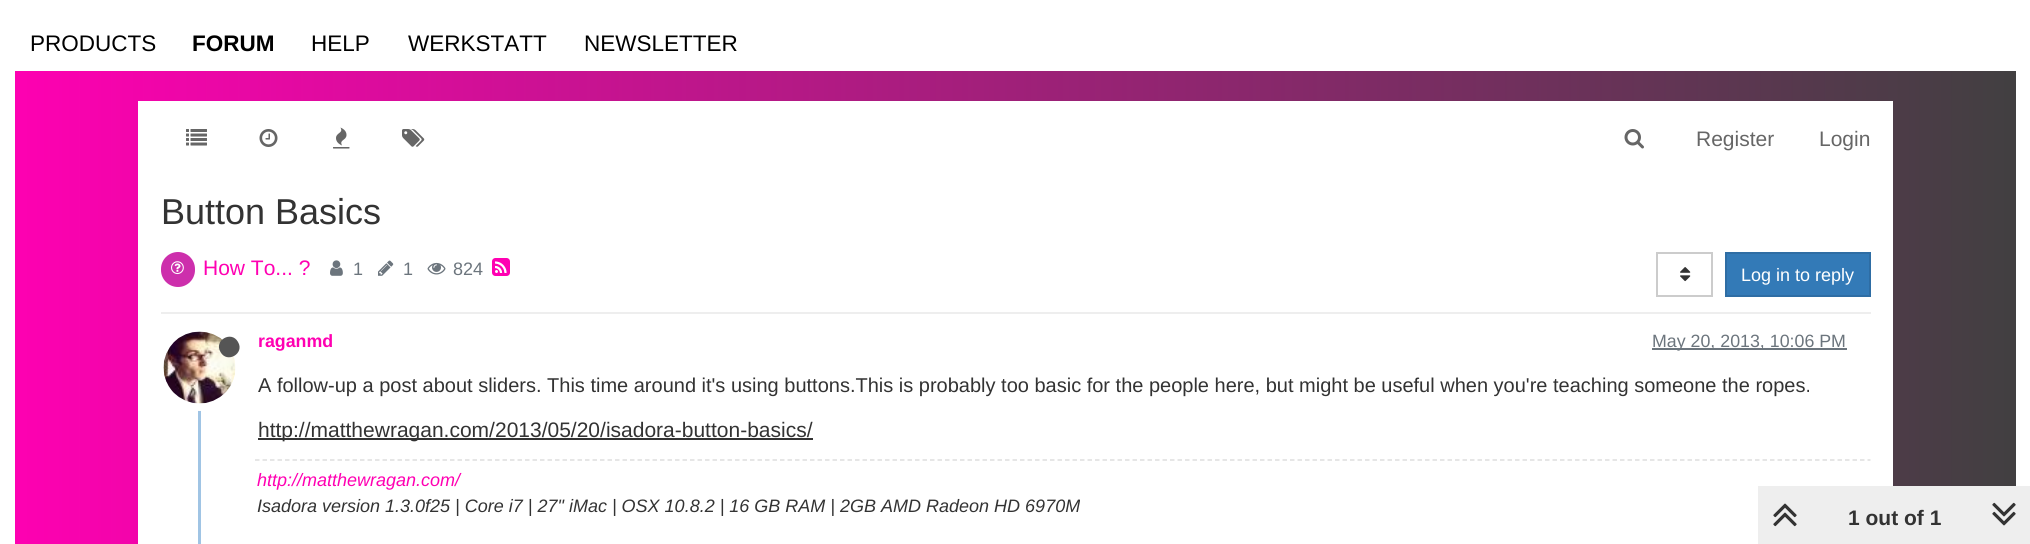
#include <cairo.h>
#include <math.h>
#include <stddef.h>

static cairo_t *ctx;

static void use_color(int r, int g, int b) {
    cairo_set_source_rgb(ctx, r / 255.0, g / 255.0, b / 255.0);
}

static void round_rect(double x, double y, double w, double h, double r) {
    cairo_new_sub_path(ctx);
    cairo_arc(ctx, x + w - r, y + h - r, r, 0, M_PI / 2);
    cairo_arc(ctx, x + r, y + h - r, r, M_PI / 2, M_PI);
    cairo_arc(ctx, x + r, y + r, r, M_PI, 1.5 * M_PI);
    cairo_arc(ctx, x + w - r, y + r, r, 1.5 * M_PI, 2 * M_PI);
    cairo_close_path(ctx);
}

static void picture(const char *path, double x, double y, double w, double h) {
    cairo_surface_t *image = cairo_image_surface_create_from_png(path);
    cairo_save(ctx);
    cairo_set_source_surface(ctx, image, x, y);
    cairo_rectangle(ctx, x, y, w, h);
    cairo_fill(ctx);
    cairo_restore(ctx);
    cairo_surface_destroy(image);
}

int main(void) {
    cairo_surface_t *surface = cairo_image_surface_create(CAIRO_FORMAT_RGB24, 2030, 544);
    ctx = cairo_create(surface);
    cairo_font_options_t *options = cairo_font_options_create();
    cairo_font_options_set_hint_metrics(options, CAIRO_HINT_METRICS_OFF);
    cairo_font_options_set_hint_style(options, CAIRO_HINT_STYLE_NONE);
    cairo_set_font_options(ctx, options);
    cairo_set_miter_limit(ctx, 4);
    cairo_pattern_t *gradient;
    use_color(255, 255, 255);
    cairo_paint(ctx);
    gradient = cairo_pattern_create_linear(0, 152, 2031, 152);
    cairo_pattern_add_color_stop_rgba(gradient, 0, 1, 0, 0.698, 1);
    cairo_pattern_add_color_stop_rgba(gradient, 1, 0.251, 0.251, 0.251, 1);
    cairo_set_source(ctx, gradient);
    cairo_pattern_destroy(gradient);
    cairo_rectangle(ctx, 15, 71, 2001, 473);
    cairo_fill(ctx);
    cairo_select_font_face(ctx, "Liberation Sans", CAIRO_FONT_SLANT_NORMAL, CAIRO_FONT_WEIGHT_NORMAL);
    cairo_set_font_size(ctx, 22.5);
    use_color(0, 0, 0);
    cairo_move_to(ctx, 30, 51);
    cairo_show_text(ctx, "PRODUCTS");
    cairo_select_font_face(ctx, "Liberation Sans", CAIRO_FONT_SLANT_NORMAL, CAIRO_FONT_WEIGHT_BOLD);
    cairo_move_to(ctx, 192, 51);
    cairo_show_text(ctx, "FORUM");
    cairo_select_font_face(ctx, "Liberation Sans", CAIRO_FONT_SLANT_NORMAL, CAIRO_FONT_WEIGHT_NORMAL);
    cairo_move_to(ctx, 311, 51);
    cairo_show_text(ctx, "HELP");
    cairo_move_to(ctx, 408, 51);
    cairo_show_text(ctx, "WERKSTATT");
    cairo_move_to(ctx, 584, 51);
    cairo_show_text(ctx, "NEWSLETTER");
    use_color(255, 255, 255);
    cairo_rectangle(ctx, 138, 101, 1755, 443);
    cairo_fill(ctx);
    picture("img1.png", 186, 129, 21, 17);
    picture("img2.png", 259, 129, 19, 18);
    picture("img3.png", 333, 127, 17, 22);
    picture("img4.png", 402, 129, 23, 18);
    picture("img5.png", 1624, 129, 20, 20);
    cairo_set_font_size(ctx, 21);
    use_color(102, 102, 102);
    cairo_move_to(ctx, 1696, 146);
    cairo_show_text(ctx, "Register");
    cairo_move_to(ctx, 1819, 146);
    cairo_show_text(ctx, "Login");
    cairo_set_font_size(ctx, 36);
    use_color(51, 51, 51);
    cairo_move_to(ctx, 161, 224);
    cairo_show_text(ctx, "Button Basics");
    use_color(238, 238, 238);
    cairo_rectangle(ctx, 161, 312, 1710, 2);
    cairo_fill(ctx);
    use_color(205, 47, 172);
    round_rect(161, 252, 34, 35, 17);
    cairo_fill(ctx);
    picture("img6.png", 171, 261, 13, 14);
    cairo_set_font_size(ctx, 21);
    use_color(255, 0, 178);
    cairo_move_to(ctx, 203, 275);
    cairo_show_text(ctx, "How To... ?");
    picture("img7.png", 330, 260, 13, 16);
    cairo_set_font_size(ctx, 18);
    use_color(108, 117, 125);
    cairo_move_to(ctx, 353, 275);
    cairo_show_text(ctx, "1");
    picture("img8.png", 378, 260, 16, 16);
    cairo_move_to(ctx, 403, 275);
    cairo_show_text(ctx, "1");
    picture("img9.png", 427, 262, 19, 13);
    cairo_move_to(ctx, 453, 275);
    cairo_show_text(ctx, "824");
    picture("img10.png", 492, 258, 18, 18);
    cairo_rectangle(ctx, 1657, 253, 55, 43);
    use_color(204, 204, 204);
    cairo_stroke(ctx);
    picture("img11.png", 1680, 267, 11, 15);
    use_color(51, 122, 183);
    cairo_rectangle(ctx, 1726, 253, 144, 43);
    cairo_fill_preserve(ctx);
    use_color(46, 109, 164);
    cairo_stroke(ctx);
    use_color(255, 255, 255);
    cairo_move_to(ctx, 1741, 281);
    cairo_show_text(ctx, "Log in to reply");
    use_color(160, 196, 228);
    cairo_rectangle(ctx, 198, 410, 3, 134);
    cairo_fill(ctx);
    cairo_arc(ctx, 199.5, 367.5, 39.5, 0, 2 * M_PI);
    use_color(255, 255, 255);
    cairo_set_line_width(ctx, 8);
    cairo_stroke(ctx);
    picture("img12.png", 163, 331, 73, 73);
    use_color(85, 85, 85);
    cairo_new_path(ctx);
    cairo_move_to(ctx, 238, 342);
    cairo_curve_to(ctx, 245, 353.5, 227, 364, 220.5, 352);
    cairo_curve_to(ctx, 213.5, 340.5, 231.5, 330, 238, 342);
    cairo_close_path(ctx);
    cairo_fill(ctx);
    cairo_select_font_face(ctx, "Liberation Sans", CAIRO_FONT_SLANT_NORMAL, CAIRO_FONT_WEIGHT_BOLD);
    cairo_set_font_size(ctx, 17.8);
    use_color(255, 0, 178);
    cairo_move_to(ctx, 258, 347);
    cairo_show_text(ctx, "raganmd");
    use_color(108, 117, 125);
    cairo_rectangle(ctx, 1652, 348, 195, 2);
    cairo_fill(ctx);
    cairo_select_font_face(ctx, "Liberation Sans", CAIRO_FONT_SLANT_NORMAL, CAIRO_FONT_WEIGHT_NORMAL);
    cairo_move_to(ctx, 1652, 347);
    cairo_show_text(ctx, "May 20, 2013, 10:06 PM");
    cairo_set_font_size(ctx, 20);
    use_color(51, 51, 51);
    cairo_move_to(ctx, 258, 392);
    cairo_show_text(ctx, "A follow-up a post about sliders. This time around it's using buttons.This is probably too basic for the people here, but might be useful when you're teaching someone the ropes.");
    cairo_rectangle(ctx, 258, 438, 555, 2);
    cairo_fill(ctx);
    cairo_set_font_size(ctx, 21);
    cairo_move_to(ctx, 258, 437);
    cairo_show_text(ctx, "http://matthewragan.com/2013/05/20/isadora-button-basics/");
    cairo_new_path(ctx);
    cairo_move_to(ctx, 255, 460);
    cairo_line_to(ctx, 1870.5, 460);
    use_color(222, 222, 222);
    cairo_set_line_width(ctx, 1.5);
    cairo_set_dash(ctx, (double[]){4.5, 3}, 2, 0);
    cairo_stroke(ctx);
    cairo_select_font_face(ctx, "Liberation Sans", CAIRO_FONT_SLANT_ITALIC, CAIRO_FONT_WEIGHT_NORMAL);
    cairo_set_font_size(ctx, 18);
    use_color(255, 0, 178);
    cairo_move_to(ctx, 257, 486);
    cairo_show_text(ctx, "http://matthewragan.com/");
    use_color(51, 51, 51);
    cairo_move_to(ctx, 257, 512);
    cairo_show_text(ctx, "Isadora version 1.3.0f25 | Core i7 | 27\" iMac | OSX 10.8.2 | 16 GB RAM | 2GB AMD Radeon HD 6970M");
    use_color(238, 238, 238);
    cairo_rectangle(ctx, 1758, 486, 272, 58);
    cairo_fill(ctx);
    picture("img13.png", 1773, 503, 24, 24);
    cairo_select_font_face(ctx, "Liberation Sans", CAIRO_FONT_SLANT_NORMAL, CAIRO_FONT_WEIGHT_BOLD);
    cairo_set_font_size(ctx, 21);
    use_color(51, 51, 51);
    cairo_move_to(ctx, 1848, 525);
    cairo_show_text(ctx, "1 out of 1");
    picture("img14.png", 1992, 502, 24, 24);
    cairo_surface_write_to_png(surface, "result.png");
    cairo_font_options_destroy(options);
    cairo_destroy(ctx);
    cairo_surface_destroy(surface);
    return 0;
}
